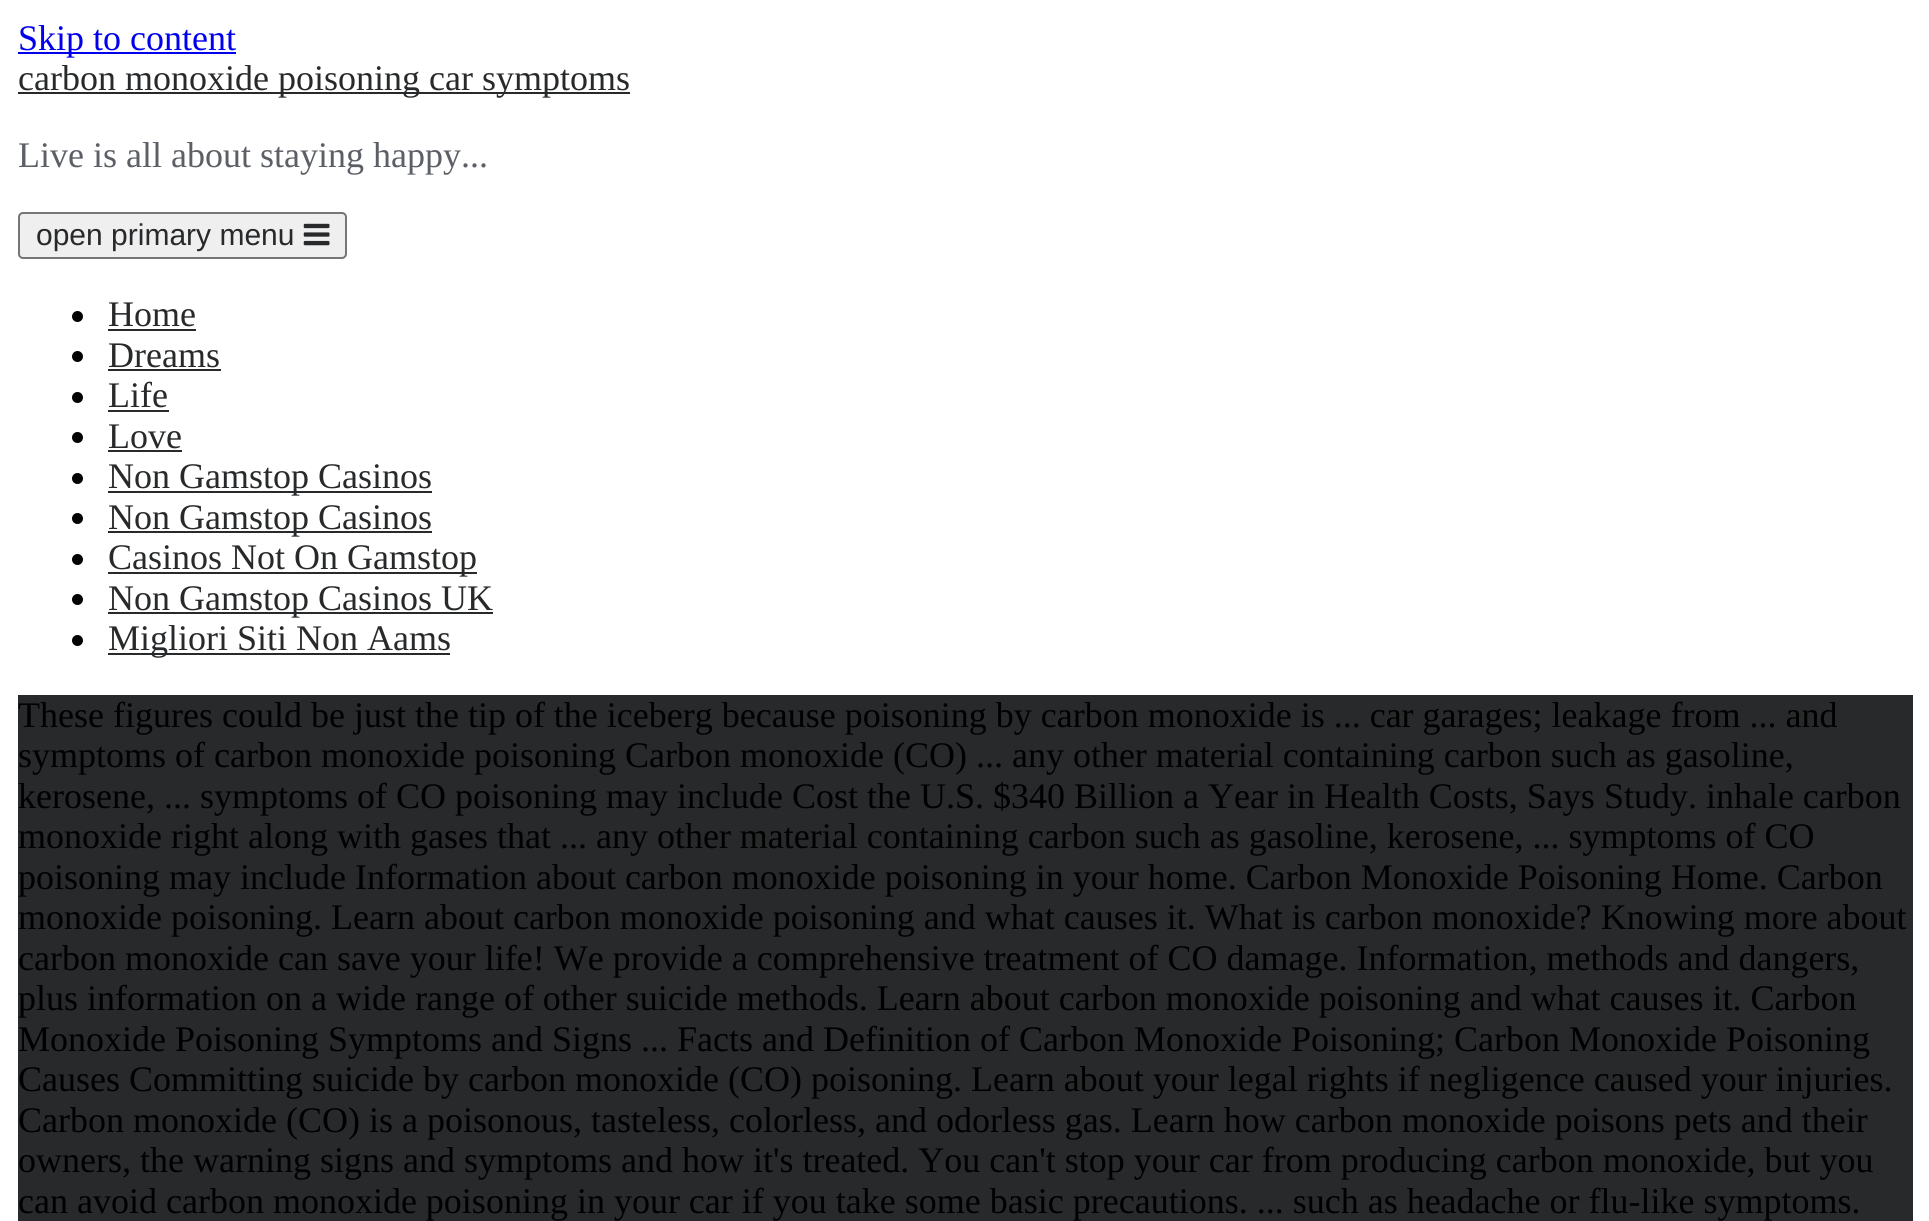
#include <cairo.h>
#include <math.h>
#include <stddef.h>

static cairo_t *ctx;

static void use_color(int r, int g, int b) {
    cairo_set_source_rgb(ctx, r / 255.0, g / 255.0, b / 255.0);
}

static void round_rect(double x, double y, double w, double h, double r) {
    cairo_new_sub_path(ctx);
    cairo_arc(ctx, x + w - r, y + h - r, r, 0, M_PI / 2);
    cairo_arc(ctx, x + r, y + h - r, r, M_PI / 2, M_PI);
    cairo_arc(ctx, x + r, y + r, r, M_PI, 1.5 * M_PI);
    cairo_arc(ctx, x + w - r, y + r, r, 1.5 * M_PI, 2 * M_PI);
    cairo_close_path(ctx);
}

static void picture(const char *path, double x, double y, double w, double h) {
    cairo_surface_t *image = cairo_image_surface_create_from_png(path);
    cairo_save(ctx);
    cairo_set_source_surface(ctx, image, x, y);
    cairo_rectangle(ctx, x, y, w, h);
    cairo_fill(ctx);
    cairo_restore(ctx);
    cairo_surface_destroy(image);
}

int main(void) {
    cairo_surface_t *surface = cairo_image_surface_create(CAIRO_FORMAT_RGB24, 1929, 1221);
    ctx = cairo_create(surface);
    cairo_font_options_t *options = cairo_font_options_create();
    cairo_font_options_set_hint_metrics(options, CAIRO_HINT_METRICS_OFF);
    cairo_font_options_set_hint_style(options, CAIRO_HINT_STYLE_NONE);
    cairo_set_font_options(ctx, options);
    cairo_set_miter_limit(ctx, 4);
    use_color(255, 255, 255);
    cairo_paint(ctx);
    use_color(0, 0, 238);
    cairo_rectangle(ctx, 18, 52, 218, 2);
    cairo_fill(ctx);
    cairo_select_font_face(ctx, "Liberation Serif", CAIRO_FONT_SLANT_NORMAL, CAIRO_FONT_WEIGHT_NORMAL);
    cairo_set_font_size(ctx, 36);
    cairo_move_to(ctx, 18, 50);
    cairo_show_text(ctx, "Skip to content");
    use_color(39, 41, 43);
    cairo_rectangle(ctx, 18, 92, 612, 2);
    cairo_fill(ctx);
    cairo_move_to(ctx, 18, 90);
    cairo_show_text(ctx, "carbon monoxide poisoning car symptoms");
    use_color(92, 96, 102);
    cairo_move_to(ctx, 18, 167);
    cairo_show_text(ctx, "Live is all about staying happy...");
    use_color(239, 239, 239);
    round_rect(19, 213, 327, 45, 4);
    cairo_fill_preserve(ctx);
    use_color(118, 118, 118);
    cairo_stroke(ctx);
    cairo_select_font_face(ctx, "Liberation Sans", CAIRO_FONT_SLANT_NORMAL, CAIRO_FONT_WEIGHT_NORMAL);
    cairo_set_font_size(ctx, 30);
    use_color(39, 41, 43);
    cairo_move_to(ctx, 36, 245);
    cairo_show_text(ctx, "open primary menu");
    picture("img1.png", 303, 223, 27, 23);
    use_color(0, 0, 0);
    cairo_arc(ctx, 77.5, 316.5, 5.5, 0, 2 * M_PI);
    cairo_fill(ctx);
    cairo_select_font_face(ctx, "Liberation Serif", CAIRO_FONT_SLANT_NORMAL, CAIRO_FONT_WEIGHT_NORMAL);
    cairo_set_font_size(ctx, 36);
    use_color(39, 41, 43);
    cairo_move_to(ctx, 108, 326);
    cairo_show_text(ctx, "Home");
    cairo_rectangle(ctx, 108, 329, 88, 2);
    cairo_fill(ctx);
    use_color(0, 0, 0);
    cairo_arc(ctx, 77.5, 356.5, 5.5, 0, 2 * M_PI);
    cairo_fill(ctx);
    use_color(39, 41, 43);
    cairo_move_to(ctx, 108, 367);
    cairo_show_text(ctx, "Dreams");
    cairo_rectangle(ctx, 108, 369, 113, 2);
    cairo_fill(ctx);
    use_color(0, 0, 0);
    cairo_arc(ctx, 77.5, 397.5, 5.5, 0, 2 * M_PI);
    cairo_fill(ctx);
    use_color(39, 41, 43);
    cairo_move_to(ctx, 108, 407);
    cairo_show_text(ctx, "Life");
    cairo_rectangle(ctx, 108, 410, 61, 2);
    cairo_fill(ctx);
    use_color(0, 0, 0);
    cairo_arc(ctx, 77.5, 437.5, 5.5, 0, 2 * M_PI);
    cairo_fill(ctx);
    use_color(39, 41, 43);
    cairo_move_to(ctx, 108, 448);
    cairo_show_text(ctx, "Love");
    cairo_rectangle(ctx, 108, 450, 74, 2);
    cairo_fill(ctx);
    use_color(0, 0, 0);
    cairo_arc(ctx, 77.5, 478.5, 5.5, 0, 2 * M_PI);
    cairo_fill(ctx);
    use_color(39, 41, 43);
    cairo_rectangle(ctx, 108, 491, 324, 2);
    cairo_fill(ctx);
    cairo_move_to(ctx, 108, 488);
    cairo_show_text(ctx, "Non Gamstop Casinos");
    use_color(0, 0, 0);
    cairo_new_path(ctx);
    cairo_arc(ctx, 77.5, 518.5, 5.5, 0, 2 * M_PI);
    cairo_fill(ctx);
    use_color(39, 41, 43);
    cairo_rectangle(ctx, 108, 531, 324, 2);
    cairo_fill(ctx);
    cairo_move_to(ctx, 108, 529);
    cairo_show_text(ctx, "Non Gamstop Casinos");
    use_color(0, 0, 0);
    cairo_new_path(ctx);
    cairo_arc(ctx, 77.5, 559.5, 5.5, 0, 2 * M_PI);
    cairo_fill(ctx);
    use_color(39, 41, 43);
    cairo_rectangle(ctx, 108, 572, 369, 2);
    cairo_fill(ctx);
    cairo_move_to(ctx, 108, 569);
    cairo_show_text(ctx, "Casinos Not On Gamstop");
    use_color(0, 0, 0);
    cairo_new_path(ctx);
    cairo_arc(ctx, 77.5, 599.5, 5.5, 0, 2 * M_PI);
    cairo_fill(ctx);
    use_color(39, 41, 43);
    cairo_rectangle(ctx, 108, 612, 385, 2);
    cairo_fill(ctx);
    cairo_move_to(ctx, 108, 610);
    cairo_show_text(ctx, "Non Gamstop Casinos UK");
    use_color(0, 0, 0);
    cairo_new_path(ctx);
    cairo_arc(ctx, 77.5, 640.5, 5.5, 0, 2 * M_PI);
    cairo_fill(ctx);
    use_color(39, 41, 43);
    cairo_rectangle(ctx, 108, 653, 342, 2);
    cairo_fill(ctx);
    cairo_move_to(ctx, 108, 650);
    cairo_show_text(ctx, "Migliori Siti Non Aams");
    cairo_rectangle(ctx, 18, 695, 1895, 526);
    cairo_fill(ctx);
    use_color(0, 0, 0);
    cairo_move_to(ctx, 18, 727);
    cairo_show_text(ctx, "These figures could be just the tip of the iceberg because poisoning by carbon monoxide is ... car garages; leakage from ... and");
    cairo_move_to(ctx, 18, 767);
    cairo_show_text(ctx, "symptoms of carbon monoxide poisoning Carbon monoxide (CO) ... any other material containing carbon such as gasoline,");
    cairo_move_to(ctx, 18, 808);
    cairo_show_text(ctx, "kerosene, ... symptoms of CO poisoning may include Cost the U.S. $340 Billion a Year in Health Costs, Says Study. inhale carbon");
    cairo_move_to(ctx, 18, 848);
    cairo_show_text(ctx, "monoxide right along with gases that ... any other material containing carbon such as gasoline, kerosene, ... symptoms of CO");
    cairo_move_to(ctx, 18, 889);
    cairo_show_text(ctx, "poisoning may include Information about carbon monoxide poisoning in your home. Carbon Monoxide Poisoning Home. Carbon");
    cairo_move_to(ctx, 18, 929);
    cairo_show_text(ctx, "monoxide poisoning. Learn about carbon monoxide poisoning and what causes it. What is carbon monoxide? Knowing more about");
    cairo_move_to(ctx, 18, 970);
    cairo_show_text(ctx, "carbon monoxide can save your life! We provide a comprehensive treatment of CO damage. Information, methods and dangers,");
    cairo_move_to(ctx, 18, 1010);
    cairo_show_text(ctx, "plus information on a wide range of other suicide methods. Learn about carbon monoxide poisoning and what causes it. Carbon");
    cairo_move_to(ctx, 18, 1051);
    cairo_show_text(ctx, "Monoxide Poisoning Symptoms and Signs ... Facts and Definition of Carbon Monoxide Poisoning; Carbon Monoxide Poisoning");
    cairo_move_to(ctx, 18, 1091);
    cairo_show_text(ctx, "Causes Committing suicide by carbon monoxide (CO) poisoning. Learn about your legal rights if negligence caused your injuries.");
    cairo_move_to(ctx, 18, 1132);
    cairo_show_text(ctx, "Carbon monoxide (CO) is a poisonous, tasteless, colorless, and odorless gas. Learn how carbon monoxide poisons pets and their");
    cairo_move_to(ctx, 18, 1172);
    cairo_show_text(ctx, "owners, the warning signs and symptoms and how it's treated. You can't stop your car from producing carbon monoxide, but you");
    cairo_move_to(ctx, 18, 1213);
    cairo_show_text(ctx, "can avoid carbon monoxide poisoning in your car if you take some basic precautions. ... such as headache or flu-like symptoms.");
    cairo_surface_write_to_png(surface, "result.png");
    cairo_font_options_destroy(options);
    cairo_destroy(ctx);
    cairo_surface_destroy(surface);
    return 0;
}
